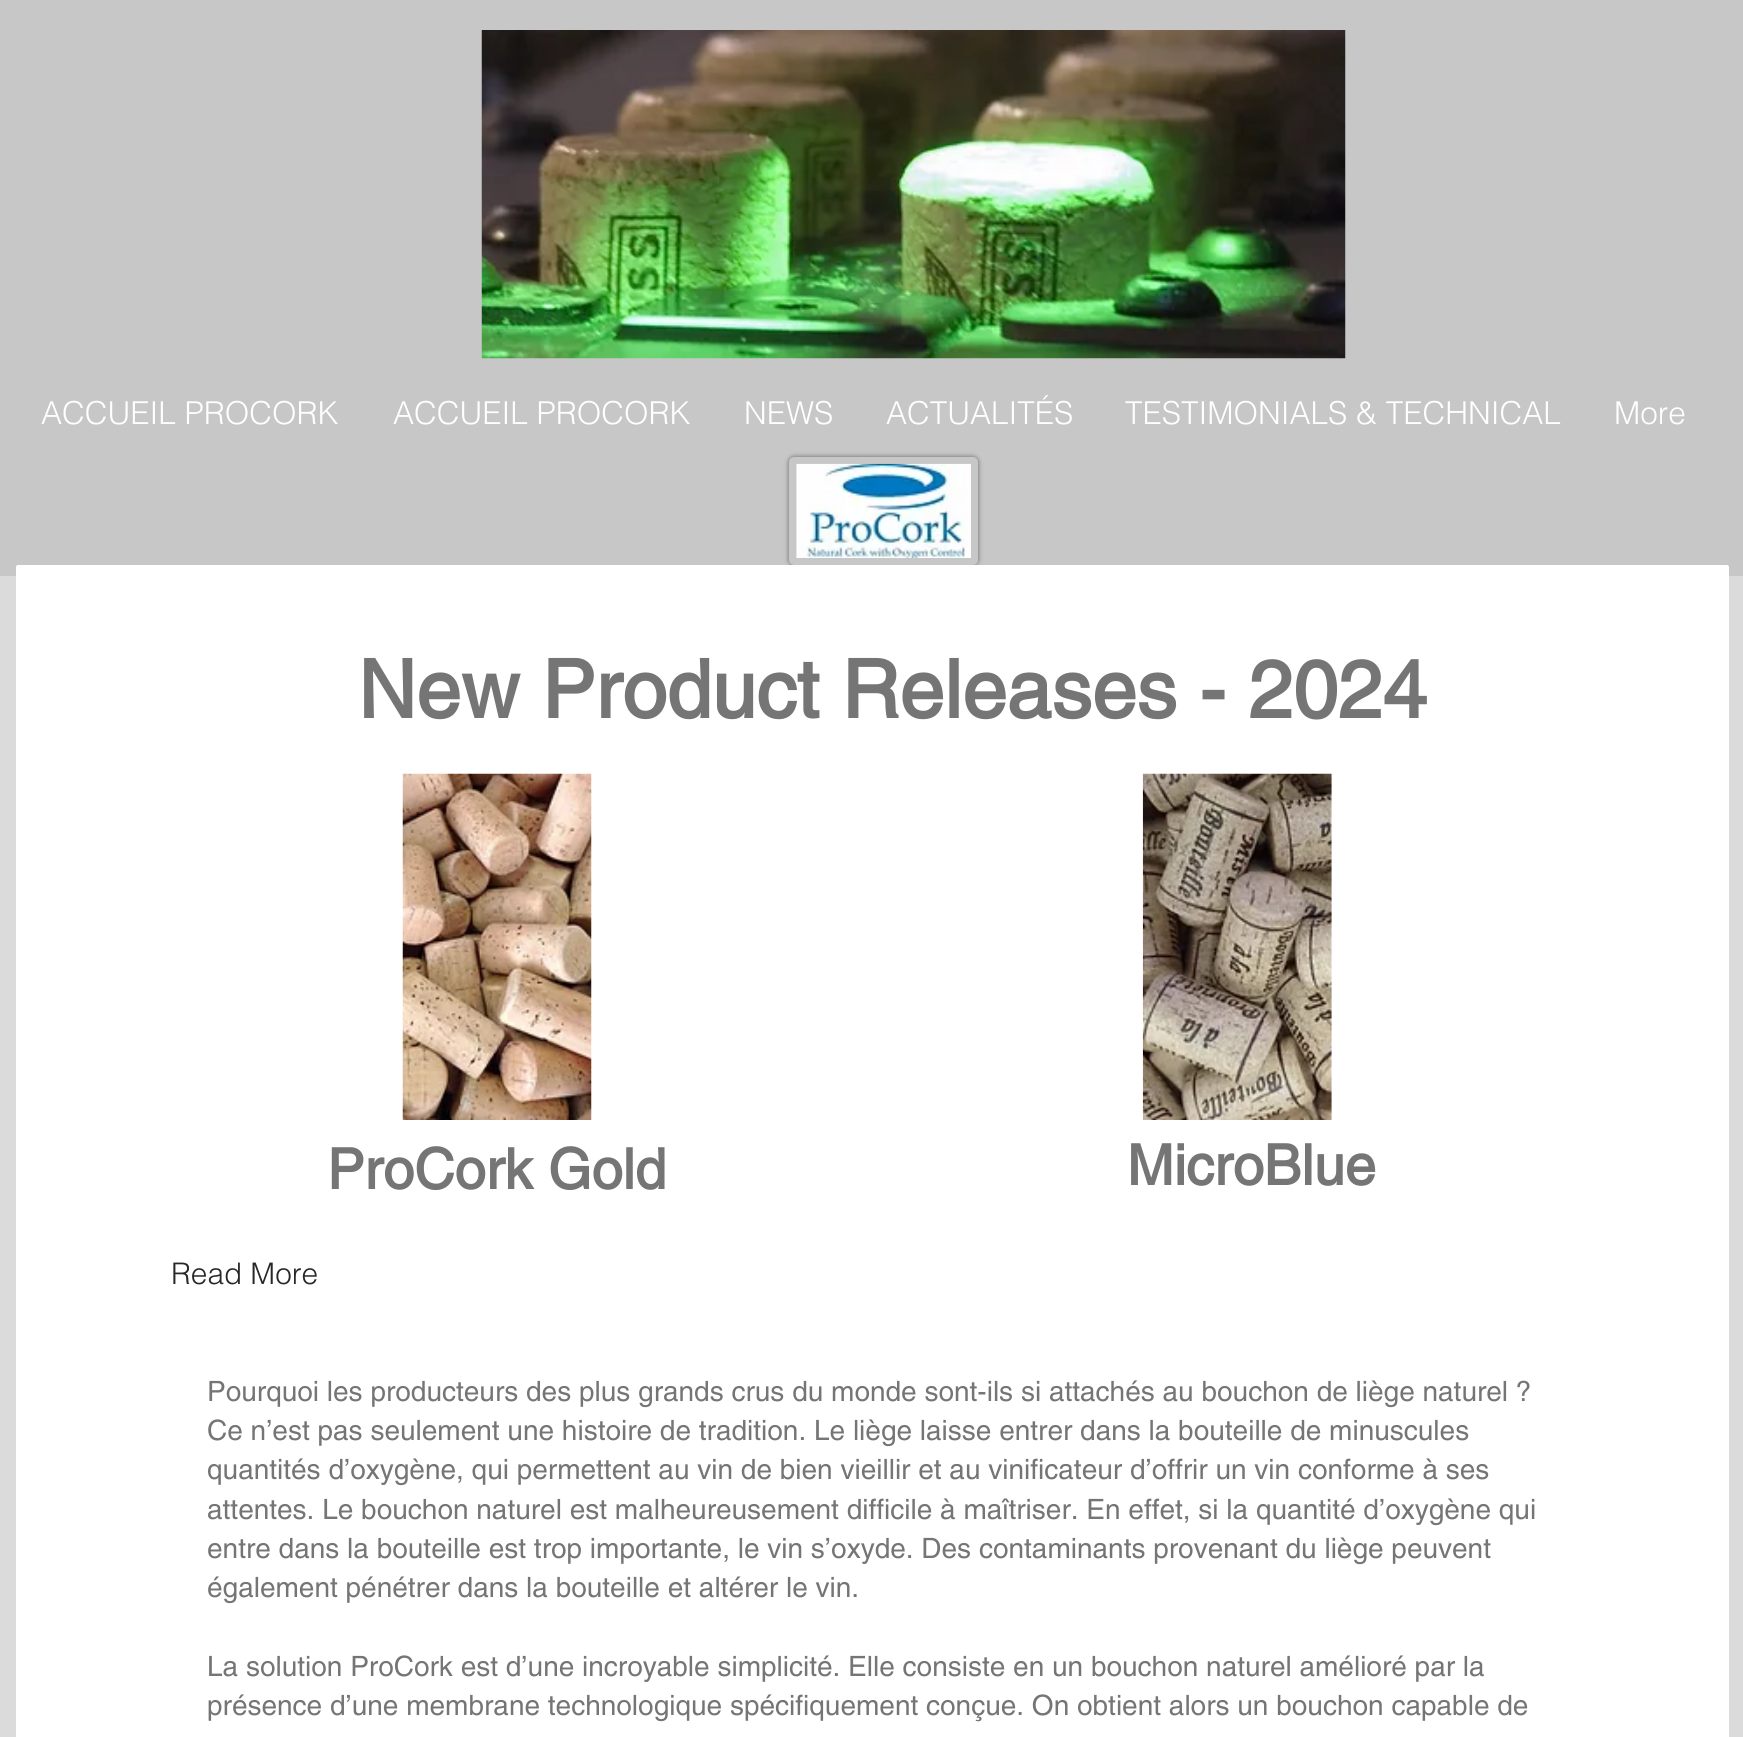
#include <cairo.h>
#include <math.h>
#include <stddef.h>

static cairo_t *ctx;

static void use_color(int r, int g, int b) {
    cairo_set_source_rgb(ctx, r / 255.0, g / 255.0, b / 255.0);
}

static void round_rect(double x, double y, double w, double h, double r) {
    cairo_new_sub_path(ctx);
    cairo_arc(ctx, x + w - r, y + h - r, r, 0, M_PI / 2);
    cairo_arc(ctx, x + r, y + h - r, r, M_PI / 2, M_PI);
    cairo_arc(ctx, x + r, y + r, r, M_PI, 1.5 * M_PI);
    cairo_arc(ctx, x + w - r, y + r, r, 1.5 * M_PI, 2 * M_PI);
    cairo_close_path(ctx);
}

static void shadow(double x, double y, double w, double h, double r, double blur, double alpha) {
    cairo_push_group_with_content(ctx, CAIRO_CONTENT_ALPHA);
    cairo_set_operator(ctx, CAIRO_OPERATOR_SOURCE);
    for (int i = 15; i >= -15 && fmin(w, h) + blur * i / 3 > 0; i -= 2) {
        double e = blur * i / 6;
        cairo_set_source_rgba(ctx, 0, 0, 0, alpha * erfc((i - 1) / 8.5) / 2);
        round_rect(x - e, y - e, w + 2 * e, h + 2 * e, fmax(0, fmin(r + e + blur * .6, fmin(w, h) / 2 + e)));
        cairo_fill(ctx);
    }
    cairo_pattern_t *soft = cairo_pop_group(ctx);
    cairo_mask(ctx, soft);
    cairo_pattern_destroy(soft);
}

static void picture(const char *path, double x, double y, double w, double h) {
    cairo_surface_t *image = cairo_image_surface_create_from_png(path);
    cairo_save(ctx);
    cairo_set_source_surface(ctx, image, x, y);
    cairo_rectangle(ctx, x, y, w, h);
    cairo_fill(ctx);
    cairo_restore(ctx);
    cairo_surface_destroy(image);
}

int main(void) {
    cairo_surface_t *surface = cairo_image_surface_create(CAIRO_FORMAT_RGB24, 1743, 1737);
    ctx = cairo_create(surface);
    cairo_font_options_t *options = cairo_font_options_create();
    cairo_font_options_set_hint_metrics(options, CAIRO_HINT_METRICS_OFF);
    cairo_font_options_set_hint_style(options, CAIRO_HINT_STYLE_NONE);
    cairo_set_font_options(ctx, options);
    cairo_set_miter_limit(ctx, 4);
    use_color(199, 199, 199);
    cairo_paint(ctx);
    picture("img1.png", 481, 30, 865, 329);
    cairo_select_font_face(ctx, "helvetica Light", CAIRO_FONT_SLANT_NORMAL, CAIRO_FONT_WEIGHT_NORMAL);
    cairo_set_font_size(ctx, 31.5);
    use_color(255, 255, 255);
    cairo_move_to(ctx, 41, 424);
    cairo_show_text(ctx, "ACCUEIL PROCORK");
    cairo_move_to(ctx, 393, 424);
    cairo_show_text(ctx, "ACCUEIL PROCORK");
    cairo_move_to(ctx, 744, 424);
    cairo_show_text(ctx, "NEWS");
    cairo_move_to(ctx, 886, 424);
    cairo_show_text(ctx, "ACTUALITÉS");
    cairo_move_to(ctx, 1125, 424);
    cairo_show_text(ctx, "TESTIMONIALS & TECHNICAL");
    cairo_move_to(ctx, 1614, 424);
    cairo_show_text(ctx, "More");
    use_color(0, 0, 0);
    shadow(789, 457, 189, 108, 5, 2.5, 0.5);
    use_color(199, 199, 199);
    round_rect(792.5, 460.5, 182, 101, 1.5);
    cairo_fill_preserve(ctx);
    cairo_set_line_width(ctx, 7);
    cairo_stroke(ctx);
    picture("img2.png", 796, 463, 175, 95);
    use_color(219, 219, 219);
    cairo_rectangle(ctx, 0, 576, 1743, 1161);
    cairo_fill(ctx);
    use_color(255, 255, 255);
    round_rect(16, 565, 1713, 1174, 2);
    cairo_fill(ctx);
    cairo_select_font_face(ctx, "helvetica", CAIRO_FONT_SLANT_NORMAL, CAIRO_FONT_WEIGHT_BOLD);
    cairo_set_font_size(ctx, 80.5);
    use_color(117, 117, 117);
    cairo_move_to(ctx, 358, 718);
    cairo_show_text(ctx, "New Product Releases - 2024");
    picture("img3.png", 402, 773, 190, 347);
    picture("img4.png", 1142, 773, 190, 347);
    cairo_set_font_size(ctx, 56);
    cairo_move_to(ctx, 327, 1189);
    cairo_show_text(ctx, "ProCork Gold");
    cairo_move_to(ctx, 1127, 1185);
    cairo_show_text(ctx, "MicroBlue");
    cairo_select_font_face(ctx, "helvetica Light", CAIRO_FONT_SLANT_NORMAL, CAIRO_FONT_WEIGHT_NORMAL);
    cairo_set_font_size(ctx, 29.75);
    use_color(40, 38, 38);
    cairo_move_to(ctx, 171, 1284);
    cairo_show_text(ctx, "Read More");
    cairo_select_font_face(ctx, "helvetica", CAIRO_FONT_SLANT_NORMAL, CAIRO_FONT_WEIGHT_NORMAL);
    cairo_set_font_size(ctx, 28);
    use_color(117, 117, 117);
    cairo_move_to(ctx, 207, 1401);
    cairo_show_text(ctx, "Pourquoi les producteurs des plus grands crus du monde sont-ils si attachés au bouchon de liège naturel ?");
    cairo_move_to(ctx, 207, 1440);
    cairo_show_text(ctx, "Ce n’est pas seulement une histoire de tradition. Le liège laisse entrer dans la bouteille de minuscules");
    cairo_move_to(ctx, 207, 1479);
    cairo_show_text(ctx, "quantités d’oxygène, qui permettent au vin de bien vieillir et au vinificateur d’offrir un vin conforme à ses");
    cairo_move_to(ctx, 207, 1519);
    cairo_show_text(ctx, "attentes. Le bouchon naturel est malheureusement difficile à maîtriser. En effet, si la quantité d’oxygène qui");
    cairo_move_to(ctx, 207, 1558);
    cairo_show_text(ctx, "entre dans la bouteille est trop importante, le vin s’oxyde. Des contaminants provenant du liège peuvent");
    cairo_move_to(ctx, 207, 1597);
    cairo_show_text(ctx, "également pénétrer dans la bouteille et altérer le vin.");
    cairo_move_to(ctx, 207, 1676);
    cairo_show_text(ctx, "La solution ProCork est d’une incroyable simplicité. Elle consiste en un bouchon naturel amélioré par la");
    cairo_move_to(ctx, 207, 1715);
    cairo_show_text(ctx, "présence d’une membrane technologique spécifiquement conçue. On obtient alors un bouchon capable de");
    cairo_surface_write_to_png(surface, "result.png");
    cairo_font_options_destroy(options);
    cairo_destroy(ctx);
    cairo_surface_destroy(surface);
    return 0;
}
